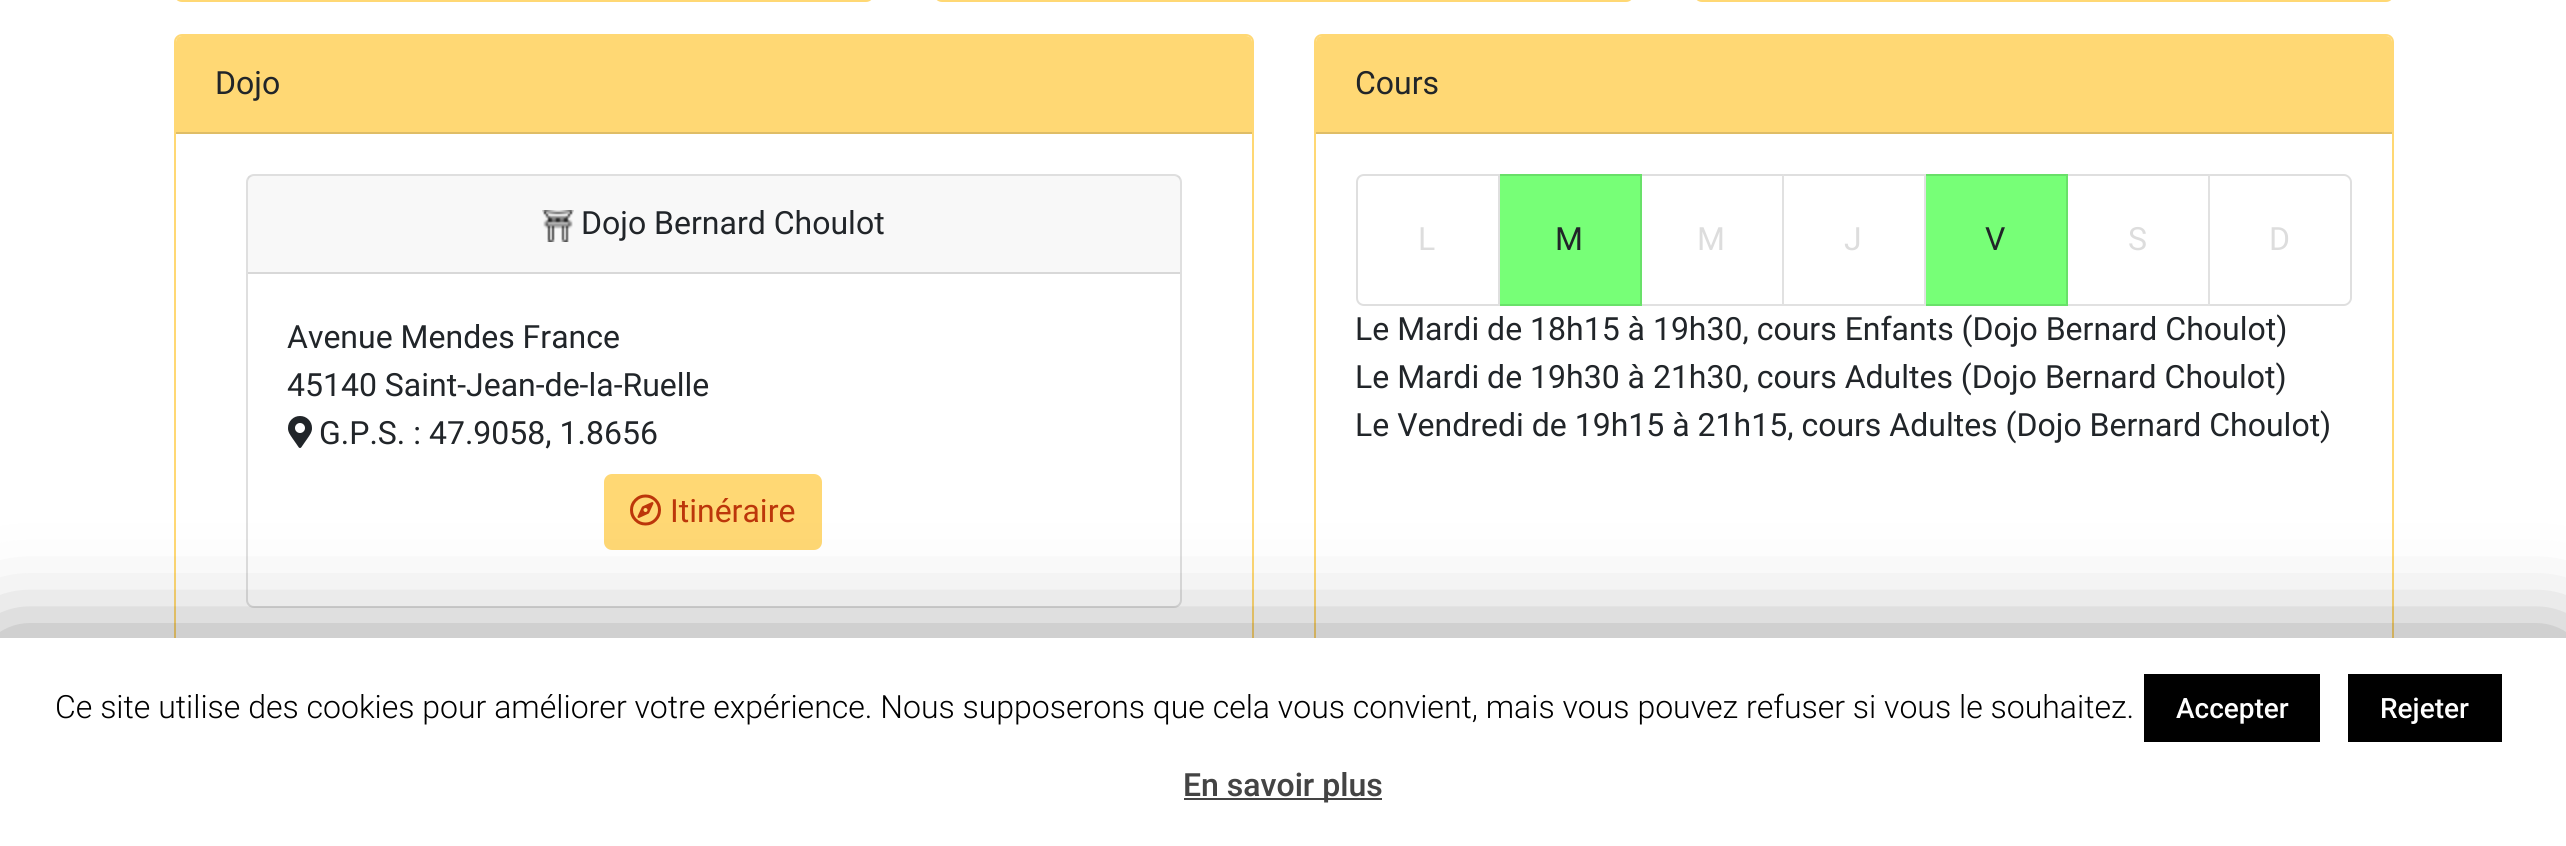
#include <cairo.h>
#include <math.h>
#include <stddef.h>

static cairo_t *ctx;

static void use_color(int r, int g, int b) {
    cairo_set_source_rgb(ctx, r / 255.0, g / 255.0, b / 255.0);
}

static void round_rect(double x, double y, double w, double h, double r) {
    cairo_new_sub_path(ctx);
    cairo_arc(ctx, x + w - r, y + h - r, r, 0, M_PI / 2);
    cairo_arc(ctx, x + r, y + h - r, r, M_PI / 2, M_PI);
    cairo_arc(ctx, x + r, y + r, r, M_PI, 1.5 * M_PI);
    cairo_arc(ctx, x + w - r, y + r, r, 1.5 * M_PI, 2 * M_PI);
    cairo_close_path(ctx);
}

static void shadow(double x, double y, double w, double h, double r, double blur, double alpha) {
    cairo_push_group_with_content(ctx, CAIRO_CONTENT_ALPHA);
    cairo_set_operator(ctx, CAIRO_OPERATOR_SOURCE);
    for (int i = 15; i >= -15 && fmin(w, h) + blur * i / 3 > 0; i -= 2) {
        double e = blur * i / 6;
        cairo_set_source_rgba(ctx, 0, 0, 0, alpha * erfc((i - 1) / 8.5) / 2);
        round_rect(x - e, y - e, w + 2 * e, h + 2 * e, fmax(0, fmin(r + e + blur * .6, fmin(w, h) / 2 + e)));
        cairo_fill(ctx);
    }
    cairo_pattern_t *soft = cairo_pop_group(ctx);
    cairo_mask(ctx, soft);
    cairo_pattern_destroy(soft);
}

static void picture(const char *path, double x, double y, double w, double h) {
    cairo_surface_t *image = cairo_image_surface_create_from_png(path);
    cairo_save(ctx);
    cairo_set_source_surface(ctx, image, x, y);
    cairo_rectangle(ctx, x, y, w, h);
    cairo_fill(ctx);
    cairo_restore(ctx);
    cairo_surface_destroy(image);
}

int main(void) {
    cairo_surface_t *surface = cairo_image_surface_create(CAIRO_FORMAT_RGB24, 2566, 846);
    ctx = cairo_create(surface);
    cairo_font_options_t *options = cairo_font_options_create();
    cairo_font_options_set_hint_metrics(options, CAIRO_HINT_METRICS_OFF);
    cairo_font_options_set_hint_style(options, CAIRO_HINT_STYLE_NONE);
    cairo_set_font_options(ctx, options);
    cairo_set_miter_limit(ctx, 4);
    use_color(255, 255, 255);
    cairo_paint(ctx);
    round_rect(175, -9, 698, 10, 7);
    use_color(255, 216, 116);
    cairo_stroke(ctx);
    round_rect(935, -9, 698, 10, 7);
    cairo_stroke(ctx);
    round_rect(1695, -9, 698, 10, 7);
    cairo_stroke(ctx);
    round_rect(175, 35, 1078, 614, 7);
    cairo_stroke(ctx);
    cairo_new_path(ctx);
    cairo_move_to(ctx, 182, 36);
    cairo_line_to(ctx, 1246, 36);
    cairo_curve_to(ctx, 1249.5, 36, 1252, 38.5, 1252, 42);
    cairo_line_to(ctx, 1252, 134);
    cairo_line_to(ctx, 176, 134);
    cairo_line_to(ctx, 176, 42);
    cairo_curve_to(ctx, 176, 38.5, 178.5, 36, 182, 36);
    cairo_close_path(ctx);
    cairo_fill(ctx);
    use_color(223, 189, 102);
    cairo_rectangle(ctx, 176, 132, 1076, 2);
    cairo_fill(ctx);
    cairo_select_font_face(ctx, "Roboto", CAIRO_FONT_SLANT_NORMAL, CAIRO_FONT_WEIGHT_NORMAL);
    cairo_set_font_size(ctx, 32);
    use_color(33, 37, 41);
    cairo_move_to(ctx, 215, 94);
    cairo_show_text(ctx, "Dojo");
    round_rect(247, 175, 934, 432, 7);
    use_color(223, 223, 223);
    cairo_stroke(ctx);
    cairo_set_source_rgba(ctx, 0, 0, 0, 0.03);
    cairo_rectangle(ctx, 248, 176, 932, 96);
    cairo_fill(ctx);
    use_color(216, 216, 216);
    cairo_rectangle(ctx, 248, 272, 932, 2);
    cairo_fill(ctx);
    picture("img1.png", 542, 210, 32, 32);
    use_color(33, 37, 41);
    cairo_move_to(ctx, 581, 234);
    cairo_show_text(ctx, "Dojo Bernard Choulot");
    cairo_move_to(ctx, 287, 348);
    cairo_show_text(ctx, "Avenue Mendes France");
    cairo_move_to(ctx, 287, 396);
    cairo_show_text(ctx, "45140 Saint-Jean-de-la-Ruelle");
    picture("img2.png", 288, 416, 24, 32);
    cairo_move_to(ctx, 319, 444);
    cairo_show_text(ctx, "G.P.S. : 47.9058, 1.8656");
    use_color(255, 216, 116);
    round_rect(605, 475, 216, 74, 7);
    cairo_fill_preserve(ctx);
    cairo_stroke(ctx);
    picture("img3.png", 630, 494, 31, 32);
    use_color(188, 54, 10);
    cairo_move_to(ctx, 670, 522);
    cairo_show_text(ctx, "Itinéraire");
    round_rect(1315, 35, 1078, 614, 7);
    use_color(255, 216, 116);
    cairo_stroke(ctx);
    cairo_new_path(ctx);
    cairo_move_to(ctx, 1322, 36);
    cairo_line_to(ctx, 2386, 36);
    cairo_curve_to(ctx, 2389.5, 36, 2392, 38.5, 2392, 42);
    cairo_line_to(ctx, 2392, 134);
    cairo_line_to(ctx, 1316, 134);
    cairo_line_to(ctx, 1316, 42);
    cairo_curve_to(ctx, 1316, 38.5, 1318.5, 36, 1322, 36);
    cairo_close_path(ctx);
    cairo_fill(ctx);
    use_color(223, 189, 102);
    cairo_rectangle(ctx, 1316, 132, 1076, 2);
    cairo_fill(ctx);
    use_color(33, 37, 41);
    cairo_move_to(ctx, 1355, 94);
    cairo_show_text(ctx, "Cours");
    cairo_new_path(ctx);
    cairo_move_to(ctx, 1364, 175);
    cairo_line_to(ctx, 1499, 175);
    cairo_line_to(ctx, 1499, 305);
    cairo_line_to(ctx, 1364, 305);
    cairo_curve_to(ctx, 1360, 305, 1357, 302, 1357, 298);
    cairo_line_to(ctx, 1357, 182);
    cairo_curve_to(ctx, 1357, 178, 1360, 175, 1364, 175);
    cairo_close_path(ctx);
    use_color(223, 223, 223);
    cairo_stroke(ctx);
    use_color(221, 221, 221);
    cairo_move_to(ctx, 1418, 250);
    cairo_show_text(ctx, "L");
    use_color(119, 255, 119);
    cairo_rectangle(ctx, 1500, 174, 142, 132);
    cairo_fill(ctx);
    use_color(104, 223, 104);
    cairo_new_path(ctx);
    cairo_move_to(ctx, 1500, 174);
    cairo_line_to(ctx, 1642, 174);
    cairo_line_to(ctx, 1640, 176);
    cairo_line_to(ctx, 1500, 176);
    cairo_close_path(ctx);
    cairo_fill(ctx);
    cairo_set_source_rgba(ctx, 0, 0, 0, 0.12);
    cairo_new_path(ctx);
    cairo_move_to(ctx, 1642, 174);
    cairo_line_to(ctx, 1642, 306);
    cairo_line_to(ctx, 1640, 304);
    cairo_line_to(ctx, 1640, 176);
    cairo_close_path(ctx);
    cairo_fill(ctx);
    cairo_new_path(ctx);
    cairo_move_to(ctx, 1642, 306);
    cairo_line_to(ctx, 1500, 306);
    cairo_line_to(ctx, 1500, 304);
    cairo_line_to(ctx, 1640, 304);
    cairo_close_path(ctx);
    cairo_fill(ctx);
    use_color(33, 37, 41);
    cairo_move_to(ctx, 1555, 250);
    cairo_show_text(ctx, "M");
    use_color(223, 223, 223);
    cairo_new_path(ctx);
    cairo_move_to(ctx, 1642, 174);
    cairo_line_to(ctx, 1784, 174);
    cairo_line_to(ctx, 1782, 176);
    cairo_line_to(ctx, 1642, 176);
    cairo_close_path(ctx);
    cairo_fill(ctx);
    cairo_set_source_rgba(ctx, 0, 0, 0, 0.12);
    cairo_new_path(ctx);
    cairo_move_to(ctx, 1784, 174);
    cairo_line_to(ctx, 1784, 306);
    cairo_line_to(ctx, 1782, 304);
    cairo_line_to(ctx, 1782, 176);
    cairo_close_path(ctx);
    cairo_fill(ctx);
    cairo_new_path(ctx);
    cairo_move_to(ctx, 1784, 306);
    cairo_line_to(ctx, 1642, 306);
    cairo_line_to(ctx, 1642, 304);
    cairo_line_to(ctx, 1782, 304);
    cairo_close_path(ctx);
    cairo_fill(ctx);
    use_color(221, 221, 221);
    cairo_move_to(ctx, 1697, 250);
    cairo_show_text(ctx, "M");
    use_color(223, 223, 223);
    cairo_new_path(ctx);
    cairo_move_to(ctx, 1784, 174);
    cairo_line_to(ctx, 1926, 174);
    cairo_line_to(ctx, 1924, 176);
    cairo_line_to(ctx, 1784, 176);
    cairo_close_path(ctx);
    cairo_fill(ctx);
    cairo_set_source_rgba(ctx, 0, 0, 0, 0.12);
    cairo_new_path(ctx);
    cairo_move_to(ctx, 1926, 174);
    cairo_line_to(ctx, 1926, 306);
    cairo_line_to(ctx, 1924, 304);
    cairo_line_to(ctx, 1924, 176);
    cairo_close_path(ctx);
    cairo_fill(ctx);
    cairo_new_path(ctx);
    cairo_move_to(ctx, 1926, 306);
    cairo_line_to(ctx, 1784, 306);
    cairo_line_to(ctx, 1784, 304);
    cairo_line_to(ctx, 1924, 304);
    cairo_close_path(ctx);
    cairo_fill(ctx);
    use_color(221, 221, 221);
    cairo_move_to(ctx, 1844, 250);
    cairo_show_text(ctx, "J");
    use_color(119, 255, 119);
    cairo_rectangle(ctx, 1926, 174, 142, 132);
    cairo_fill(ctx);
    use_color(104, 223, 104);
    cairo_new_path(ctx);
    cairo_move_to(ctx, 1926, 174);
    cairo_line_to(ctx, 2068, 174);
    cairo_line_to(ctx, 2066, 176);
    cairo_line_to(ctx, 1926, 176);
    cairo_close_path(ctx);
    cairo_fill(ctx);
    cairo_set_source_rgba(ctx, 0, 0, 0, 0.12);
    cairo_new_path(ctx);
    cairo_move_to(ctx, 2068, 174);
    cairo_line_to(ctx, 2068, 306);
    cairo_line_to(ctx, 2066, 304);
    cairo_line_to(ctx, 2066, 176);
    cairo_close_path(ctx);
    cairo_fill(ctx);
    cairo_new_path(ctx);
    cairo_move_to(ctx, 2068, 306);
    cairo_line_to(ctx, 1926, 306);
    cairo_line_to(ctx, 1926, 304);
    cairo_line_to(ctx, 2066, 304);
    cairo_close_path(ctx);
    cairo_fill(ctx);
    use_color(33, 37, 41);
    cairo_move_to(ctx, 1985, 250);
    cairo_show_text(ctx, "V");
    use_color(223, 223, 223);
    cairo_new_path(ctx);
    cairo_move_to(ctx, 2068, 174);
    cairo_line_to(ctx, 2210, 174);
    cairo_line_to(ctx, 2208, 176);
    cairo_line_to(ctx, 2068, 176);
    cairo_close_path(ctx);
    cairo_fill(ctx);
    cairo_set_source_rgba(ctx, 0, 0, 0, 0.12);
    cairo_new_path(ctx);
    cairo_move_to(ctx, 2210, 174);
    cairo_line_to(ctx, 2210, 306);
    cairo_line_to(ctx, 2208, 304);
    cairo_line_to(ctx, 2208, 176);
    cairo_close_path(ctx);
    cairo_fill(ctx);
    cairo_new_path(ctx);
    cairo_move_to(ctx, 2210, 306);
    cairo_line_to(ctx, 2068, 306);
    cairo_line_to(ctx, 2068, 304);
    cairo_line_to(ctx, 2208, 304);
    cairo_close_path(ctx);
    cairo_fill(ctx);
    use_color(221, 221, 221);
    cairo_move_to(ctx, 2128, 250);
    cairo_show_text(ctx, "S");
    use_color(223, 223, 223);
    cairo_set_fill_rule(ctx, CAIRO_FILL_RULE_EVEN_ODD);
    cairo_new_path(ctx);
    cairo_move_to(ctx, 2210, 174);
    cairo_line_to(ctx, 2344, 174);
    cairo_curve_to(ctx, 2348, 174, 2352, 178, 2352, 182);
    cairo_line_to(ctx, 2352, 298);
    cairo_curve_to(ctx, 2352, 302, 2348, 306, 2344, 306);
    cairo_line_to(ctx, 2210, 306);
    cairo_close_path(ctx);
    cairo_move_to(ctx, 2210, 176);
    cairo_line_to(ctx, 2344, 176);
    cairo_curve_to(ctx, 2347, 176, 2350, 179, 2350, 182);
    cairo_line_to(ctx, 2350, 298);
    cairo_curve_to(ctx, 2350, 301, 2347, 304, 2344, 304);
    cairo_line_to(ctx, 2210, 304);
    cairo_close_path(ctx);
    cairo_fill(ctx);
    use_color(221, 221, 221);
    cairo_move_to(ctx, 2269, 250);
    cairo_show_text(ctx, "D");
    use_color(33, 37, 41);
    cairo_move_to(ctx, 1355, 340);
    cairo_show_text(ctx, "Le Mardi de 18h15 à 19h30, cours Enfants (Dojo Bernard Choulot)");
    cairo_move_to(ctx, 1355, 388);
    cairo_show_text(ctx, "Le Mardi de 19h30 à 21h30, cours Adultes (Dojo Bernard Choulot)");
    cairo_move_to(ctx, 1355, 436);
    cairo_show_text(ctx, "Le Vendredi de 19h15 à 21h15, cours Adultes (Dojo Bernard Choulot)");
    use_color(0, 0, 0);
    shadow(0, 648, 2566, 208, 0, 50, 0.5);
    use_color(255, 255, 255);
    cairo_rectangle(ctx, 0, 638, 2566, 208);
    cairo_fill(ctx);
    cairo_select_font_face(ctx, "Roboto Light", CAIRO_FONT_SLANT_NORMAL, CAIRO_FONT_WEIGHT_NORMAL);
    use_color(0, 0, 0);
    cairo_move_to(ctx, 55, 718);
    cairo_show_text(ctx, "Ce site utilise des cookies pour améliorer votre expérience. Nous supposerons que cela vous convient, mais vous pouvez refuser si vous le souhaitez.");
    cairo_rectangle(ctx, 2144, 674, 176, 68);
    cairo_fill(ctx);
    cairo_select_font_face(ctx, "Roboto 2 Medium", CAIRO_FONT_SLANT_NORMAL, CAIRO_FONT_WEIGHT_NORMAL);
    cairo_set_font_size(ctx, 28);
    use_color(255, 255, 255);
    cairo_move_to(ctx, 2176, 718);
    cairo_show_text(ctx, "Accepter");
    use_color(0, 0, 0);
    cairo_rectangle(ctx, 2348, 674, 154, 68);
    cairo_fill(ctx);
    use_color(255, 255, 255);
    cairo_move_to(ctx, 2380, 718);
    cairo_show_text(ctx, "Rejeter");
    use_color(68, 68, 68);
    cairo_rectangle(ctx, 1184, 798, 198, 2);
    cairo_fill(ctx);
    cairo_select_font_face(ctx, "Roboto Medium", CAIRO_FONT_SLANT_NORMAL, CAIRO_FONT_WEIGHT_NORMAL);
    cairo_set_font_size(ctx, 32);
    cairo_move_to(ctx, 1183, 796);
    cairo_show_text(ctx, "En savoir plus");
    cairo_surface_write_to_png(surface, "result.png");
    cairo_font_options_destroy(options);
    cairo_destroy(ctx);
    cairo_surface_destroy(surface);
    return 0;
}
